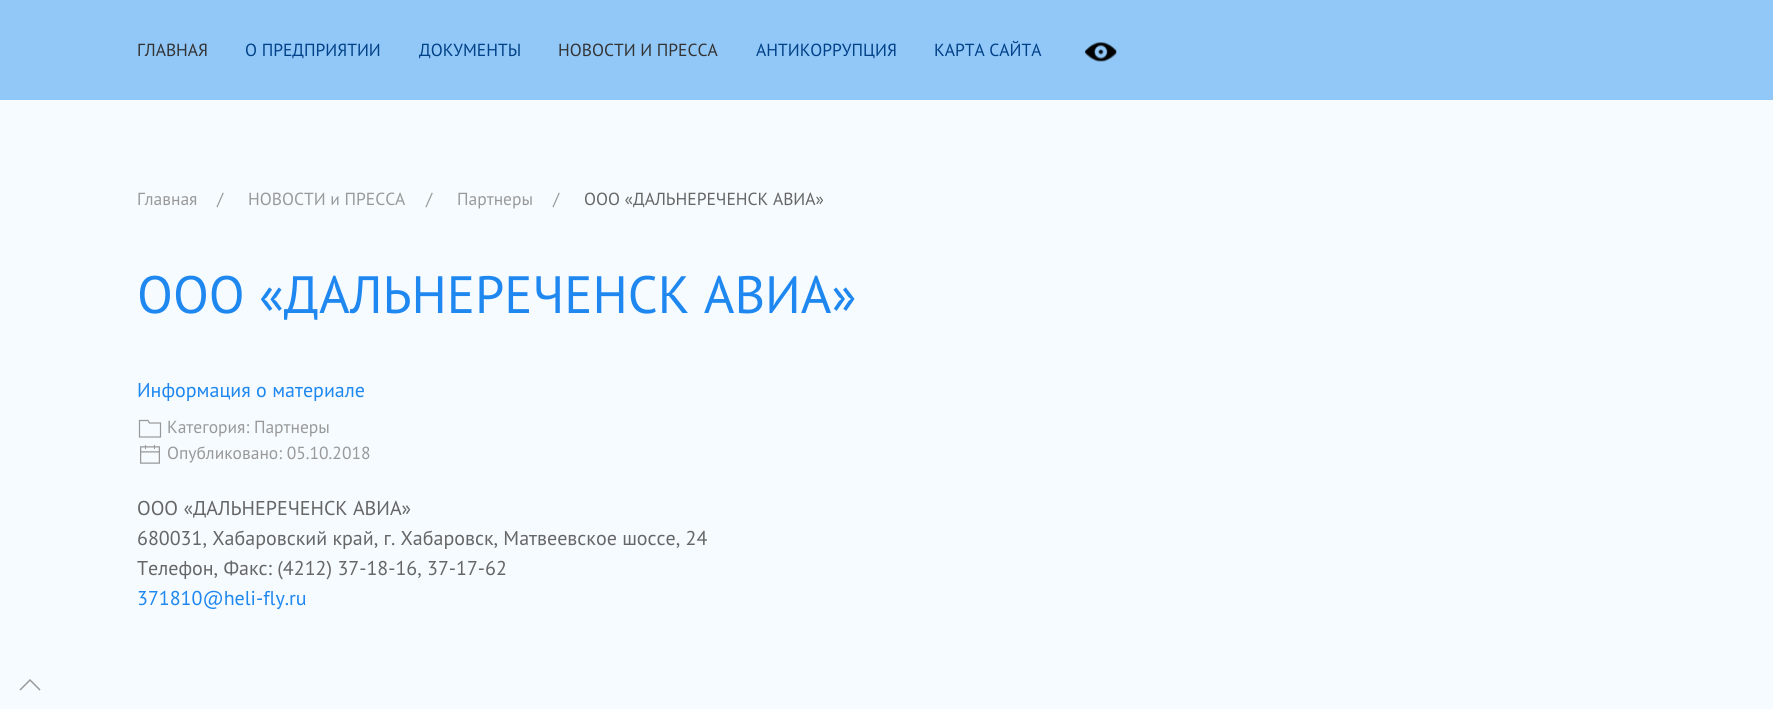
#include <cairo.h>
#include <math.h>
#include <stddef.h>

static cairo_t *ctx;

static void use_color(int r, int g, int b) {
    cairo_set_source_rgb(ctx, r / 255.0, g / 255.0, b / 255.0);
}

static void picture(const char *path, double x, double y, double w, double h) {
    cairo_surface_t *image = cairo_image_surface_create_from_png(path);
    cairo_save(ctx);
    cairo_set_source_surface(ctx, image, x, y);
    cairo_rectangle(ctx, x, y, w, h);
    cairo_fill(ctx);
    cairo_restore(ctx);
    cairo_surface_destroy(image);
}

int main(void) {
    cairo_surface_t *surface = cairo_image_surface_create(CAIRO_FORMAT_RGB24, 1773, 709);
    ctx = cairo_create(surface);
    cairo_font_options_t *options = cairo_font_options_create();
    cairo_font_options_set_hint_metrics(options, CAIRO_HINT_METRICS_OFF);
    cairo_font_options_set_hint_style(options, CAIRO_HINT_STYLE_NONE);
    cairo_set_font_options(ctx, options);
    cairo_set_miter_limit(ctx, 4);
    use_color(245, 251, 255);
    cairo_paint(ctx);
    use_color(146, 200, 248);
    cairo_rectangle(ctx, 0, 0, 1773, 100);
    cairo_fill(ctx);
    cairo_select_font_face(ctx, "PT Sans", CAIRO_FONT_SLANT_NORMAL, CAIRO_FONT_WEIGHT_NORMAL);
    cairo_set_font_size(ctx, 17.5);
    use_color(51, 51, 51);
    cairo_move_to(ctx, 137, 56);
    cairo_show_text(ctx, "ГЛАВНАЯ");
    use_color(1, 65, 136);
    cairo_move_to(ctx, 245, 56);
    cairo_show_text(ctx, "О ПРЕДПРИЯТИИ");
    cairo_move_to(ctx, 419, 56);
    cairo_show_text(ctx, "ДОКУМЕНТЫ");
    use_color(51, 51, 51);
    cairo_move_to(ctx, 558, 56);
    cairo_show_text(ctx, "НОВОСТИ И ПРЕССА");
    use_color(1, 65, 136);
    cairo_move_to(ctx, 756, 56);
    cairo_show_text(ctx, "АНТИКОРРУПЦИЯ");
    cairo_move_to(ctx, 934, 56);
    cairo_show_text(ctx, "КАРТА САЙТА");
    picture("img1.png", 1085, 42, 32, 20);
    use_color(153, 153, 153);
    cairo_move_to(ctx, 137, 205);
    cairo_show_text(ctx, "Главная");
    cairo_move_to(ctx, 217, 205);
    cairo_show_text(ctx, "/");
    cairo_move_to(ctx, 248, 205);
    cairo_show_text(ctx, "НОВОСТИ и ПРЕССА");
    cairo_move_to(ctx, 426, 205);
    cairo_show_text(ctx, "/");
    cairo_move_to(ctx, 457, 205);
    cairo_show_text(ctx, "Партнеры");
    cairo_move_to(ctx, 553, 205);
    cairo_show_text(ctx, "/");
    use_color(102, 102, 102);
    cairo_move_to(ctx, 584, 205);
    cairo_show_text(ctx, "ООО «ДАЛЬНЕРЕЧЕНСК АВИА»");
    cairo_set_font_size(ctx, 52.5);
    use_color(30, 135, 240);
    cairo_move_to(ctx, 137, 313);
    cairo_show_text(ctx, "ООО «ДАЛЬНЕРЕЧЕНСК АВИА»");
    cairo_set_font_size(ctx, 20);
    cairo_move_to(ctx, 137, 397);
    cairo_show_text(ctx, "Информация о материале");
    cairo_new_path(ctx);
    cairo_move_to(ctx, 149.5, 423);
    cairo_line_to(ctx, 148, 420.5);
    cairo_line_to(ctx, 139.5, 420.5);
    cairo_line_to(ctx, 139.5, 437);
    cairo_line_to(ctx, 160.5, 437);
    cairo_line_to(ctx, 160.5, 423);
    cairo_close_path(ctx);
    use_color(153, 153, 153);
    cairo_set_line_width(ctx, 1.2);
    cairo_stroke(ctx);
    cairo_set_font_size(ctx, 17.5);
    cairo_move_to(ctx, 167, 433);
    cairo_show_text(ctx, "Категория: Партнеры");
    picture("img2.png", 140, 445, 20, 19);
    cairo_move_to(ctx, 167, 459);
    cairo_show_text(ctx, "Опубликовано: 05.10.2018");
    cairo_set_font_size(ctx, 20);
    use_color(102, 102, 102);
    cairo_move_to(ctx, 137, 515);
    cairo_show_text(ctx, "ООО «ДАЛЬНЕРЕЧЕНСК АВИА»");
    cairo_move_to(ctx, 137, 545);
    cairo_show_text(ctx, "680031, Хабаровский край, г. Хабаровск, Матвеевское шоссе, 24");
    cairo_move_to(ctx, 137, 575);
    cairo_show_text(ctx, "Телефон, Факс: (4212) 37-18-16, 37-17-62");
    use_color(30, 135, 240);
    cairo_move_to(ctx, 137, 605);
    cairo_show_text(ctx, "371810@heli-fly.ru");
    cairo_new_path(ctx);
    cairo_move_to(ctx, 20, 690);
    cairo_line_to(ctx, 30, 680);
    cairo_line_to(ctx, 40, 690);
    use_color(153, 153, 153);
    cairo_set_line_width(ctx, 1.5);
    cairo_stroke(ctx);
    cairo_surface_write_to_png(surface, "result.png");
    cairo_font_options_destroy(options);
    cairo_destroy(ctx);
    cairo_surface_destroy(surface);
    return 0;
}
